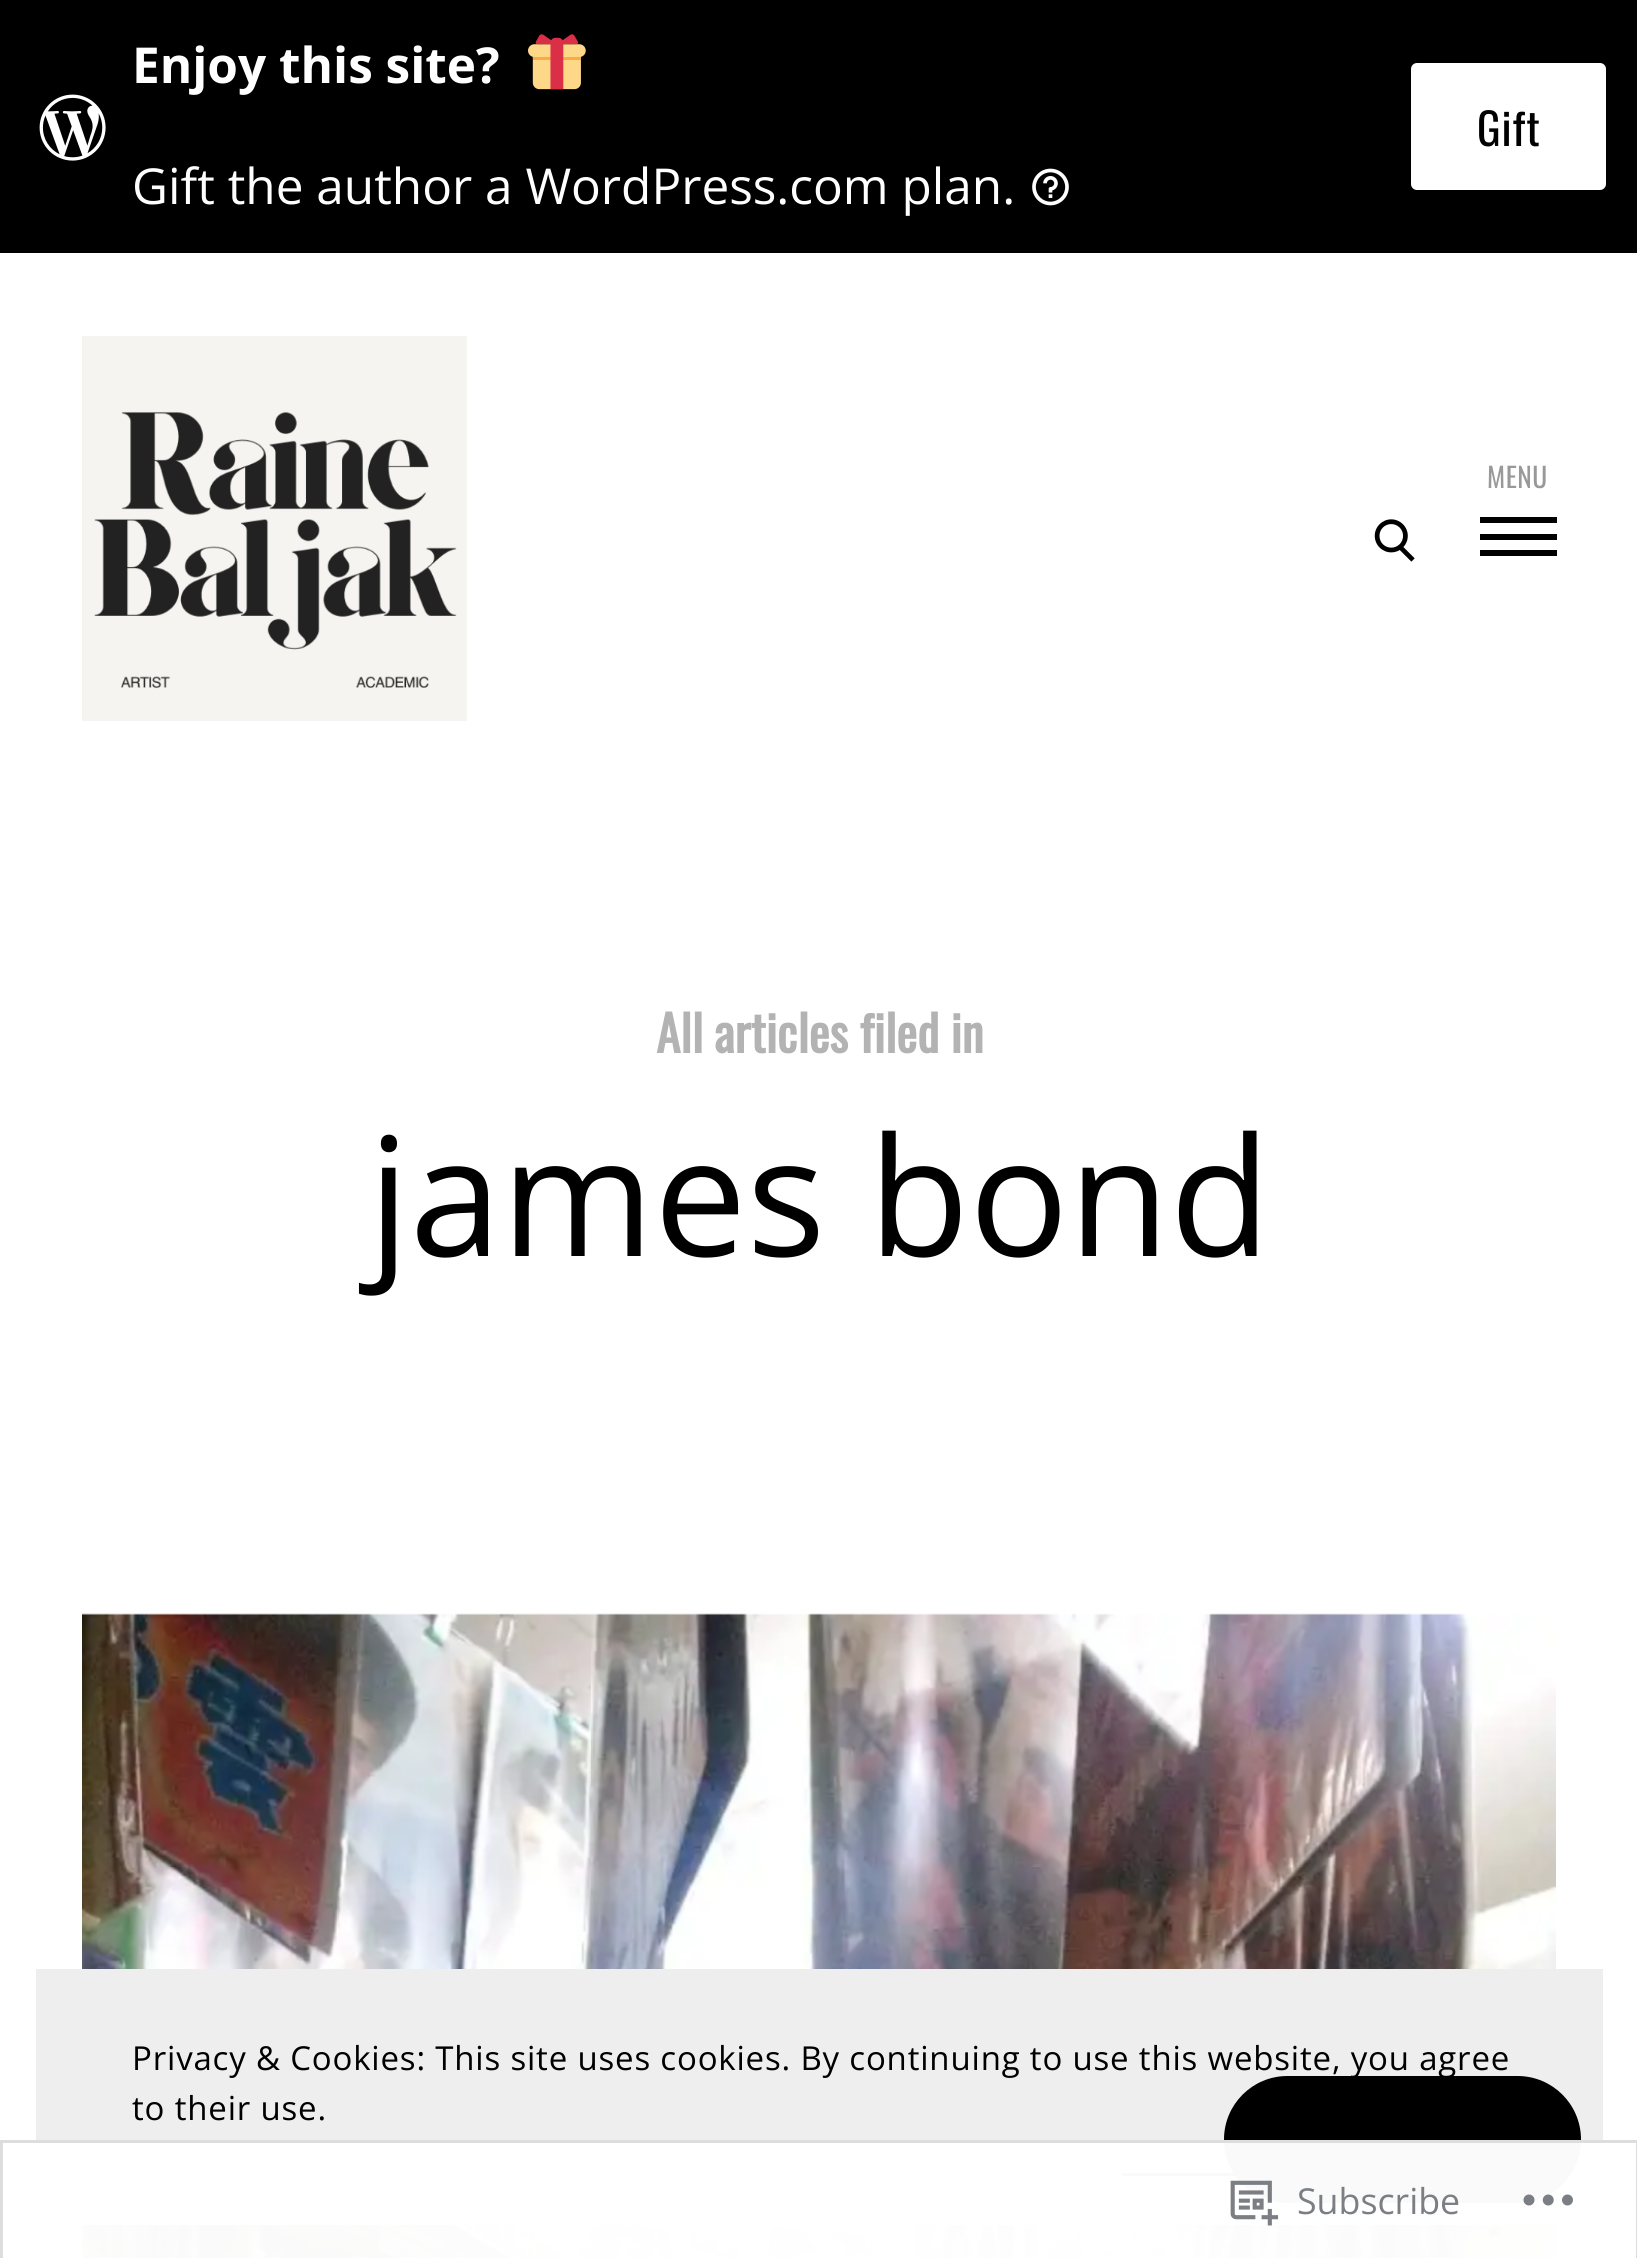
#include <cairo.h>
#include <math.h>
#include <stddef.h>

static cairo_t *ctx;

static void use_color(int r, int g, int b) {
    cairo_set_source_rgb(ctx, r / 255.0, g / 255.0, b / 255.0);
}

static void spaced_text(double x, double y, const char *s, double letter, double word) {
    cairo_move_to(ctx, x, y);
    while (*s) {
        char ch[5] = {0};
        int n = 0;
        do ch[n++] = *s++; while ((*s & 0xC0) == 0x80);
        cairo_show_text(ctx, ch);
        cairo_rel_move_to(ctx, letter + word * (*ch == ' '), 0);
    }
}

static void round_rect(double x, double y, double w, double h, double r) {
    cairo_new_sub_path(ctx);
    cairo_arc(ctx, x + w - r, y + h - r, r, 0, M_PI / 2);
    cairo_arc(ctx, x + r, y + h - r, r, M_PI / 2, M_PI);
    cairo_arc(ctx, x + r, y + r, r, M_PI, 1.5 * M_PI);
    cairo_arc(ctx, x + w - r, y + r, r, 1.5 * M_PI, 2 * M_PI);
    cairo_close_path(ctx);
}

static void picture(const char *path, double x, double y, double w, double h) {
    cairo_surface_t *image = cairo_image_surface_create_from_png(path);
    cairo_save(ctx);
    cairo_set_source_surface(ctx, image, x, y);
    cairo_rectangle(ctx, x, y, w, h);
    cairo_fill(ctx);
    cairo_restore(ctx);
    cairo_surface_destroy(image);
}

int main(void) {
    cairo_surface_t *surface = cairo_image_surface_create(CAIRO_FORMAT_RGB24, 1637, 2258);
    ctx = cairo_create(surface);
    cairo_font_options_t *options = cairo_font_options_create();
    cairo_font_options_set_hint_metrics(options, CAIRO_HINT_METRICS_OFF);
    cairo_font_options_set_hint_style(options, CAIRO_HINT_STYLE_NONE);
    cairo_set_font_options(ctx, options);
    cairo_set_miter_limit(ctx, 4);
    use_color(255, 255, 255);
    cairo_paint(ctx);
    use_color(0, 0, 0);
    cairo_rectangle(ctx, 0, 0, 1637, 253);
    cairo_fill(ctx);
    picture("img1.png", 39, 94, 67, 67);
    cairo_select_font_face(ctx, "Open Sans", CAIRO_FONT_SLANT_NORMAL, CAIRO_FONT_WEIGHT_BOLD);
    cairo_set_font_size(ctx, 49.5);
    use_color(255, 255, 255);
    cairo_move_to(ctx, 132, 83);
    cairo_show_text(ctx, "Enjoy this site?");
    picture("img2.png", 528, 34, 58, 56);
    cairo_select_font_face(ctx, "Open Sans", CAIRO_FONT_SLANT_NORMAL, CAIRO_FONT_WEIGHT_NORMAL);
    cairo_move_to(ctx, 132, 204);
    cairo_show_text(ctx, "Gift the author a WordPress.com plan.");
    picture("img3.png", 1032, 168, 37, 38);
    round_rect(1411, 63, 195, 127, 6);
    cairo_fill(ctx);
    cairo_select_font_face(ctx, "Oswald", CAIRO_FONT_SLANT_NORMAL, CAIRO_FONT_WEIGHT_NORMAL);
    cairo_set_font_size(ctx, 44);
    use_color(0, 0, 0);
    spaced_text(1477, 146, "Gift", 1, 0);
    picture("img4.png", 82, 336, 385, 385);
    cairo_set_font_size(ctx, 27.5);
    use_color(153, 153, 153);
    spaced_text(1487, 488, "MENU", 0.5, 0);
    use_color(0, 0, 0);
    cairo_rectangle(ctx, 1480, 517, 77, 6);
    cairo_fill(ctx);
    cairo_rectangle(ctx, 1480, 534, 77, 6);
    cairo_fill(ctx);
    cairo_rectangle(ctx, 1480, 550, 77, 6);
    cairo_fill(ctx);
    picture("img5.png", 1374, 519, 41, 43);
    cairo_select_font_face(ctx, "Oswald", CAIRO_FONT_SLANT_NORMAL, CAIRO_FONT_WEIGHT_BOLD);
    cairo_set_font_size(ctx, 49.5);
    use_color(179, 179, 179);
    cairo_move_to(ctx, 656, 1053);
    cairo_show_text(ctx, "All articles filed in");
    cairo_select_font_face(ctx, "Open Sans", CAIRO_FONT_SLANT_NORMAL, CAIRO_FONT_WEIGHT_NORMAL);
    cairo_set_font_size(ctx, 165);
    use_color(0, 0, 0);
    cairo_move_to(ctx, 368, 1256);
    cairo_show_text(ctx, "james bond");
    picture("img6.png", 82, 1613, 1474, 645);
    use_color(238, 238, 238);
    cairo_rectangle(ctx, 36, 1969, 1567, 256);
    cairo_fill(ctx);
    cairo_set_font_size(ctx, 33);
    use_color(0, 0, 0);
    spaced_text(132, 2070, "Privacy & Cookies: This site uses cookies. By continuing to use this website, you agree", 0.82, 0);
    spaced_text(132, 2120, "to their use.", 0.82, 0);
    cairo_rectangle(ctx, 1122, 2173, 114, 3);
    cairo_fill(ctx);
    round_rect(1224, 2076, 357, 127, 63.5);
    cairo_fill(ctx);
    cairo_set_source_rgba(ctx, 1, 1, 1, 0.98);
    cairo_rectangle(ctx, 36, 2140, 1567, 118);
    cairo_fill(ctx);
    cairo_rectangle(ctx, 1.5, 2141.5, 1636, 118);
    cairo_set_source_rgba(ctx, 0.863, 0.863, 0.871, 0.98);
    cairo_set_line_width(ctx, 3);
    cairo_stroke(ctx);
    picture("img7.png", 1230, 2180, 49, 46);
    cairo_set_font_size(ctx, 35.75);
    use_color(123, 127, 132);
    cairo_move_to(ctx, 1297, 2214);
    cairo_show_text(ctx, "Subscribe");
    picture("img8.png", 1523, 2194, 50, 12);
    cairo_surface_write_to_png(surface, "result.png");
    cairo_font_options_destroy(options);
    cairo_destroy(ctx);
    cairo_surface_destroy(surface);
    return 0;
}
